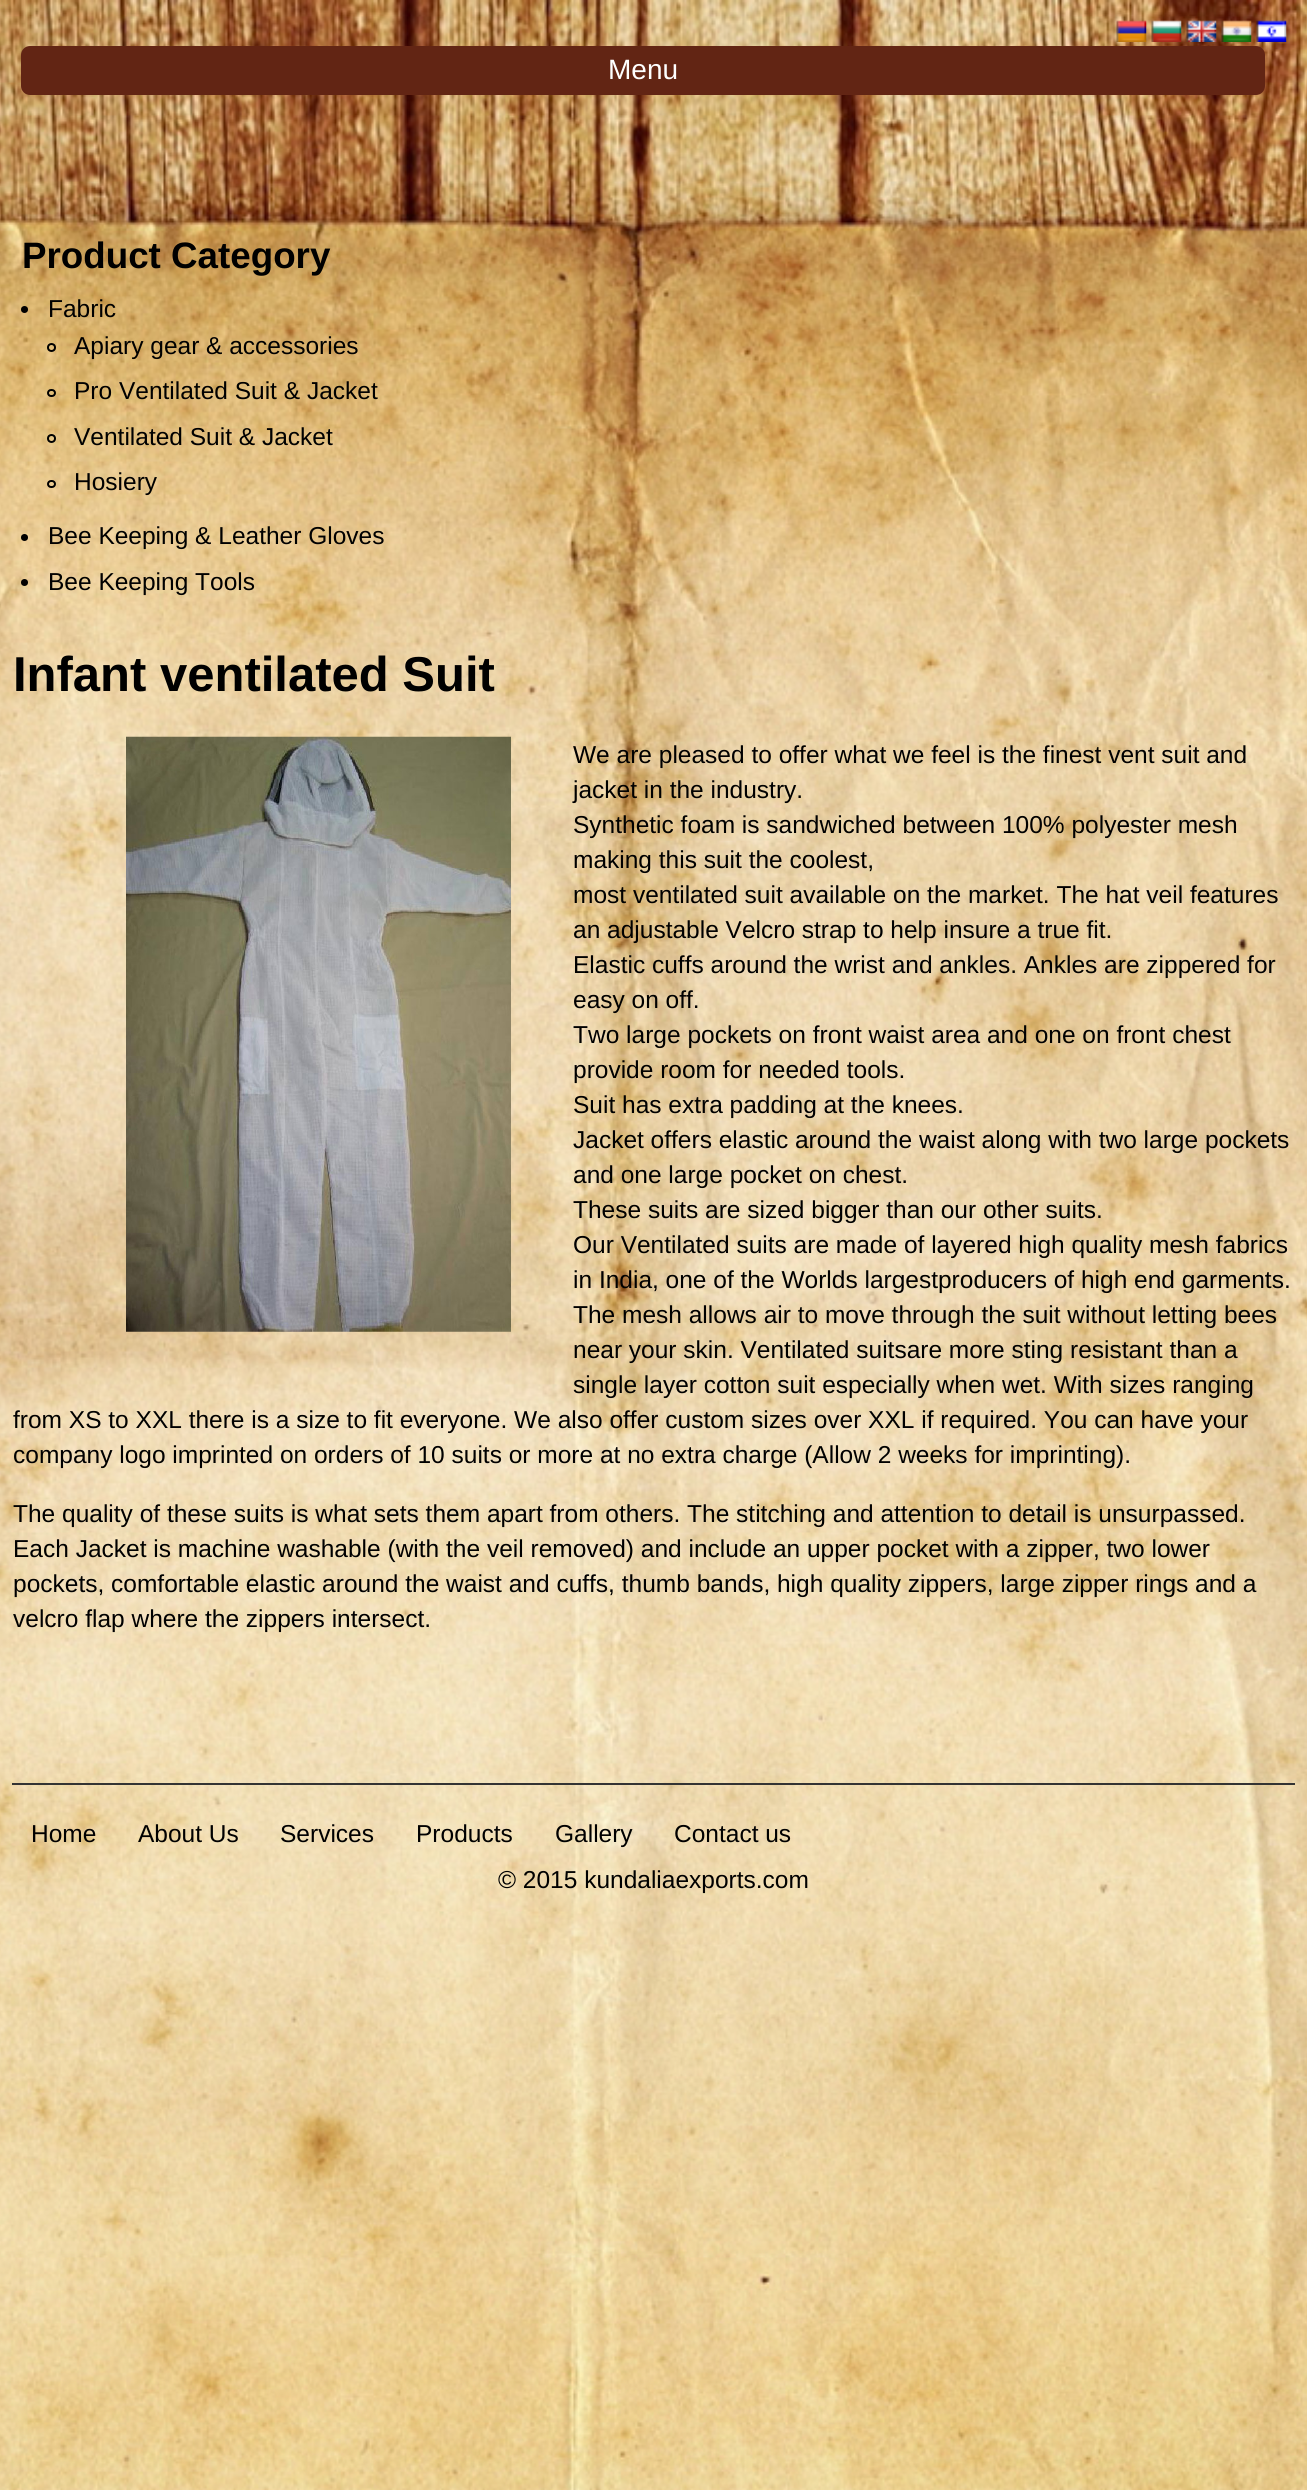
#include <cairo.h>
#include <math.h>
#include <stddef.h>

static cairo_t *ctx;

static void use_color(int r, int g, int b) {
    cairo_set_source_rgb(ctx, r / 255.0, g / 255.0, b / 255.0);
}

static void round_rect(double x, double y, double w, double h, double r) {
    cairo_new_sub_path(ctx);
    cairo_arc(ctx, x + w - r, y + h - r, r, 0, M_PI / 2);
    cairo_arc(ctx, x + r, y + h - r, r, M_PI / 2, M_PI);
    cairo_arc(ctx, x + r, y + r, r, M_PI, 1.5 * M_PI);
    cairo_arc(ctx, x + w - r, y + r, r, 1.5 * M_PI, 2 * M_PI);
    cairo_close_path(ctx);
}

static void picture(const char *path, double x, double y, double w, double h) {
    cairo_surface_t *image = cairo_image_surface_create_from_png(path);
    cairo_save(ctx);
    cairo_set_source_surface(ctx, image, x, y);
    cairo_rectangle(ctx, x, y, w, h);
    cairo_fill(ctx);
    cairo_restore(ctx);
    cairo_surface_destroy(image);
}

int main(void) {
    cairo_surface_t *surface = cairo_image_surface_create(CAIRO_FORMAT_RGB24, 1307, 2490);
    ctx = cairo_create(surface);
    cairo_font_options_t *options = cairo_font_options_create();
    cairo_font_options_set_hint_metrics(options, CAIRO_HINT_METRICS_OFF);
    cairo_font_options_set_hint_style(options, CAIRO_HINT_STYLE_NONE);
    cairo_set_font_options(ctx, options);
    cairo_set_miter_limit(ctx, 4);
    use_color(255, 255, 255);
    cairo_paint(ctx);
    picture("img1.png", 0, 0, 1307, 2490);
    picture("img2.png", 1116, 20, 31, 22);
    picture("img3.png", 1151, 20, 31, 22);
    picture("img4.png", 1186, 20, 31, 22);
    picture("img5.png", 1221, 20, 31, 22);
    picture("img6.png", 1256, 20, 31, 22);
    use_color(98, 37, 20);
    round_rect(21, 46, 1244, 49, 9);
    cairo_fill(ctx);
    cairo_select_font_face(ctx, "Liberation Sans", CAIRO_FONT_SLANT_NORMAL, CAIRO_FONT_WEIGHT_NORMAL);
    cairo_set_font_size(ctx, 28);
    use_color(255, 255, 255);
    cairo_move_to(ctx, 608, 79);
    cairo_show_text(ctx, "Menu");
    cairo_select_font_face(ctx, "Liberation Sans", CAIRO_FONT_SLANT_NORMAL, CAIRO_FONT_WEIGHT_BOLD);
    cairo_set_font_size(ctx, 36.75);
    use_color(0, 0, 0);
    cairo_move_to(ctx, 22, 268);
    cairo_show_text(ctx, "Product Category");
    cairo_new_path(ctx);
    cairo_arc(ctx, 24.5, 309.5, 3.5, 0, 2 * M_PI);
    cairo_fill(ctx);
    cairo_select_font_face(ctx, "Liberation Sans", CAIRO_FONT_SLANT_NORMAL, CAIRO_FONT_WEIGHT_NORMAL);
    cairo_set_font_size(ctx, 24.5);
    cairo_move_to(ctx, 48, 317);
    cairo_show_text(ctx, "Fabric");
    cairo_new_path(ctx);
    cairo_arc(ctx, 51.5, 347.5, 3.5, 0, 2 * M_PI);
    cairo_stroke(ctx);
    cairo_move_to(ctx, 74, 354);
    cairo_show_text(ctx, "Apiary gear & accessories");
    round_rect(48, 390, 7, 6, 3);
    cairo_stroke(ctx);
    cairo_move_to(ctx, 74, 399);
    cairo_show_text(ctx, "Pro Ventilated Suit & Jacket");
    cairo_new_path(ctx);
    cairo_arc(ctx, 51.5, 438.5, 3.5, 0, 2 * M_PI);
    cairo_stroke(ctx);
    cairo_move_to(ctx, 74, 445);
    cairo_show_text(ctx, "Ventilated Suit & Jacket");
    round_rect(48, 481, 7, 6, 3);
    cairo_stroke(ctx);
    cairo_move_to(ctx, 74, 490);
    cairo_show_text(ctx, "Hosiery");
    cairo_new_path(ctx);
    cairo_arc(ctx, 24.5, 537.5, 3.5, 0, 2 * M_PI);
    cairo_fill(ctx);
    cairo_move_to(ctx, 48, 544);
    cairo_show_text(ctx, "Bee Keeping & Leather Gloves");
    cairo_new_path(ctx);
    cairo_arc(ctx, 24.5, 582.5, 3.5, 0, 2 * M_PI);
    cairo_fill(ctx);
    cairo_move_to(ctx, 48, 590);
    cairo_show_text(ctx, "Bee Keeping Tools");
    cairo_select_font_face(ctx, "Liberation Sans", CAIRO_FONT_SLANT_NORMAL, CAIRO_FONT_WEIGHT_BOLD);
    cairo_set_font_size(ctx, 49);
    cairo_move_to(ctx, 13, 691);
    cairo_show_text(ctx, "Infant ventilated Suit");
    picture("img7.png", 126, 736, 385, 596);
    cairo_select_font_face(ctx, "Liberation Sans", CAIRO_FONT_SLANT_NORMAL, CAIRO_FONT_WEIGHT_NORMAL);
    cairo_set_font_size(ctx, 24.5);
    cairo_move_to(ctx, 573, 763);
    cairo_show_text(ctx, "We are pleased to offer what we feel is the finest vent suit and");
    cairo_move_to(ctx, 573, 798);
    cairo_show_text(ctx, "jacket in the industry.");
    cairo_move_to(ctx, 573, 833);
    cairo_show_text(ctx, "Synthetic foam is sandwiched between 100% polyester mesh");
    cairo_move_to(ctx, 573, 868);
    cairo_show_text(ctx, "making this suit the coolest,");
    cairo_move_to(ctx, 573, 903);
    cairo_show_text(ctx, "most ventilated suit available on the market. The hat veil features");
    cairo_move_to(ctx, 573, 938);
    cairo_show_text(ctx, "an adjustable Velcro strap to help insure a true fit.");
    cairo_move_to(ctx, 573, 973);
    cairo_show_text(ctx, "Elastic cuffs around the wrist and ankles. Ankles are zippered for");
    cairo_move_to(ctx, 573, 1008);
    cairo_show_text(ctx, "easy on off.");
    cairo_move_to(ctx, 573, 1043);
    cairo_show_text(ctx, "Two large pockets on front waist area and one on front chest");
    cairo_move_to(ctx, 573, 1078);
    cairo_show_text(ctx, "provide room for needed tools.");
    cairo_move_to(ctx, 573, 1113);
    cairo_show_text(ctx, "Suit has extra padding at the knees.");
    cairo_move_to(ctx, 573, 1148);
    cairo_show_text(ctx, "Jacket offers elastic around the waist along with two large pockets");
    cairo_move_to(ctx, 573, 1183);
    cairo_show_text(ctx, "and one large pocket on chest.");
    cairo_move_to(ctx, 573, 1218);
    cairo_show_text(ctx, "These suits are sized bigger than our other suits.");
    cairo_move_to(ctx, 573, 1253);
    cairo_show_text(ctx, "Our Ventilated suits are made of layered high quality mesh fabrics");
    cairo_move_to(ctx, 573, 1288);
    cairo_show_text(ctx, "in India, one of the Worlds largestproducers of high end garments.");
    cairo_move_to(ctx, 573, 1323);
    cairo_show_text(ctx, "The mesh allows air to move through the suit without letting bees");
    cairo_move_to(ctx, 573, 1358);
    cairo_show_text(ctx, "near your skin. Ventilated suitsare more sting resistant than a");
    cairo_move_to(ctx, 573, 1393);
    cairo_show_text(ctx, "single layer cotton suit especially when wet. With sizes ranging");
    cairo_move_to(ctx, 13, 1428);
    cairo_show_text(ctx, "from XS to XXL there is a size to fit everyone. We also offer custom sizes over XXL if required. You can have your");
    cairo_move_to(ctx, 13, 1463);
    cairo_show_text(ctx, "company logo imprinted on orders of 10 suits or more at no extra charge (Allow 2 weeks for imprinting).");
    cairo_move_to(ctx, 13, 1522);
    cairo_show_text(ctx, "The quality of these suits is what sets them apart from others. The stitching and attention to detail is unsurpassed.");
    cairo_move_to(ctx, 13, 1557);
    cairo_show_text(ctx, "Each Jacket is machine washable (with the veil removed) and include an upper pocket with a zipper, two lower");
    cairo_move_to(ctx, 13, 1592);
    cairo_show_text(ctx, "pockets, comfortable elastic around the waist and cuffs, thumb bands, high quality zippers, large zipper rings and a");
    cairo_move_to(ctx, 13, 1627);
    cairo_show_text(ctx, "velcro flap where the zippers intersect.");
    use_color(51, 51, 51);
    cairo_rectangle(ctx, 12, 1783, 1283, 2);
    cairo_fill(ctx);
    use_color(0, 0, 0);
    cairo_move_to(ctx, 31, 1842);
    cairo_show_text(ctx, "Home");
    cairo_move_to(ctx, 138, 1842);
    cairo_show_text(ctx, "About Us");
    cairo_move_to(ctx, 280, 1842);
    cairo_show_text(ctx, "Services");
    cairo_move_to(ctx, 416, 1842);
    cairo_show_text(ctx, "Products");
    cairo_move_to(ctx, 555, 1842);
    cairo_show_text(ctx, "Gallery");
    cairo_move_to(ctx, 674, 1842);
    cairo_show_text(ctx, "Contact us");
    cairo_move_to(ctx, 498, 1888);
    cairo_show_text(ctx, "© 2015 kundaliaexports.com");
    cairo_surface_write_to_png(surface, "result.png");
    cairo_font_options_destroy(options);
    cairo_destroy(ctx);
    cairo_surface_destroy(surface);
    return 0;
}
